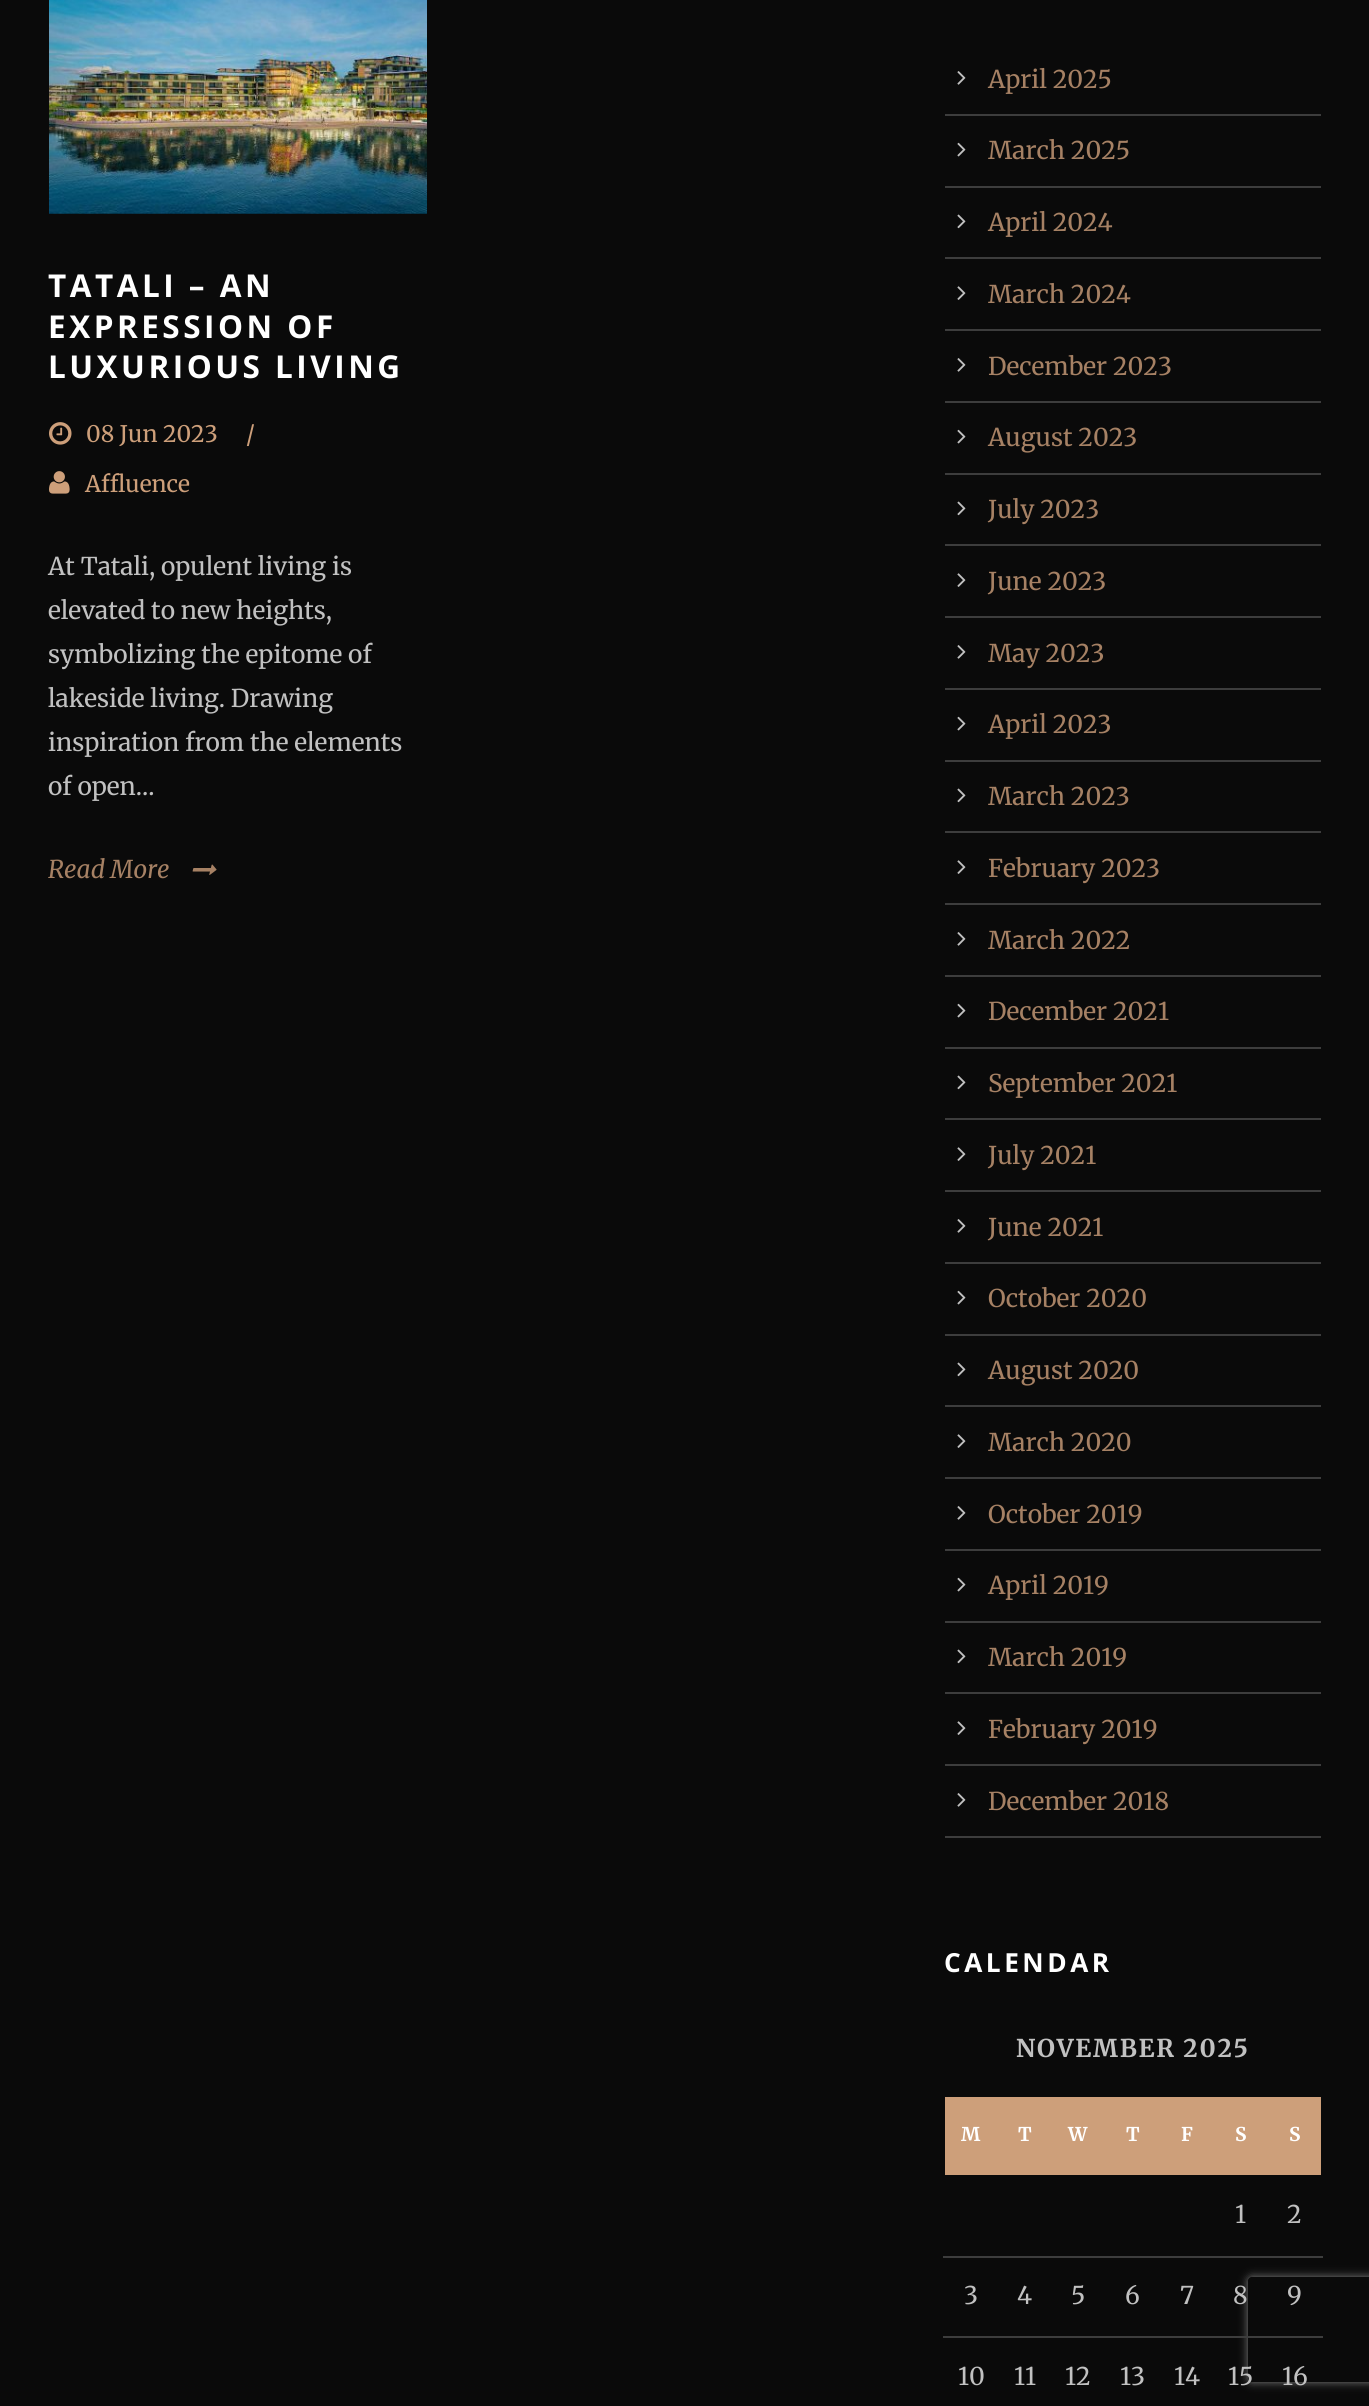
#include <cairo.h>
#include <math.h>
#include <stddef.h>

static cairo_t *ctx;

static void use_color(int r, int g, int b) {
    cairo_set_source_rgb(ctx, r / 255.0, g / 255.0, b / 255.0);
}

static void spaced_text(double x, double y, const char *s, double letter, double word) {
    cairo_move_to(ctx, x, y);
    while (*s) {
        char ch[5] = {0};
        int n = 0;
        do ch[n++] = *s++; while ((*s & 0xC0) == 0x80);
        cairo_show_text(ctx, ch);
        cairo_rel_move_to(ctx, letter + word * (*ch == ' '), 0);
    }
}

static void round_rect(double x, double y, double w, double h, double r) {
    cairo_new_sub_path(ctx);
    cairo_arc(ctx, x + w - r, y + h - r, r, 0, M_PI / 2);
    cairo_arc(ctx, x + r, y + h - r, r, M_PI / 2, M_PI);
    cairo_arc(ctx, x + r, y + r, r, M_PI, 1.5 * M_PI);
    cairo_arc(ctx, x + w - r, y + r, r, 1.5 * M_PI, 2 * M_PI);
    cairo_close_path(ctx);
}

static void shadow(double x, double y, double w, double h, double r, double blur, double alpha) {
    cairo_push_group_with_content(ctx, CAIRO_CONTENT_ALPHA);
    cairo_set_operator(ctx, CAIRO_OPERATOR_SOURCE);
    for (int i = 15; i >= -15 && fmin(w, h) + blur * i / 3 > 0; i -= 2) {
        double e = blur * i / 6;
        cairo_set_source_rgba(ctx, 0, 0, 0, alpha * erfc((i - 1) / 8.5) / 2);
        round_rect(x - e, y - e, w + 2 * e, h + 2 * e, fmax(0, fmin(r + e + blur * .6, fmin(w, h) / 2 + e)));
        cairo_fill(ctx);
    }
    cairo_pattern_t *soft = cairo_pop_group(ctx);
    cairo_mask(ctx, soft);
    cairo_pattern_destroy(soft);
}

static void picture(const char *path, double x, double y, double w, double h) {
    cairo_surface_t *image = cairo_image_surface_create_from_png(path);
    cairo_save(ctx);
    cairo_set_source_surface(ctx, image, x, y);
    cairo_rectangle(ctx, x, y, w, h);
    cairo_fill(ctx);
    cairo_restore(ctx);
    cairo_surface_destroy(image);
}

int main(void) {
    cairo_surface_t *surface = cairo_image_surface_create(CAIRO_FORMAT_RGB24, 1369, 2406);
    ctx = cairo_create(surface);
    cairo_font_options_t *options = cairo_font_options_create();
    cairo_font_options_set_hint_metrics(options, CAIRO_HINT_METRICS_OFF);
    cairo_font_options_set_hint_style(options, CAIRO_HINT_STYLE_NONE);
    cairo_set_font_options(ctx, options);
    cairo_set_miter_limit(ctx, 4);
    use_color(10, 10, 10);
    cairo_paint(ctx);
    picture("img1.png", 49, 0, 378, 214);
    cairo_select_font_face(ctx, "Open Sans", CAIRO_FONT_SLANT_NORMAL, CAIRO_FONT_WEIGHT_BOLD);
    cairo_set_font_size(ctx, 31.5);
    use_color(255, 255, 255);
    spaced_text(48, 297, "TATALI – AN", 3.5, 0);
    spaced_text(48, 338, "EXPRESSION OF", 3.5, 0);
    spaced_text(48, 378, "LUXURIOUS LIVING", 3.5, 0);
    picture("img2.png", 49, 422, 23, 23);
    cairo_select_font_face(ctx, "Merriweather", CAIRO_FONT_SLANT_NORMAL, CAIRO_FONT_WEIGHT_NORMAL);
    cairo_set_font_size(ctx, 22.75);
    use_color(205, 159, 122);
    cairo_move_to(ctx, 86, 442);
    cairo_show_text(ctx, "08 Jun 2023");
    cairo_move_to(ctx, 246, 442);
    cairo_show_text(ctx, "/");
    picture("img3.png", 49, 471, 21, 23);
    cairo_move_to(ctx, 85, 492);
    cairo_show_text(ctx, "Affluence");
    cairo_set_font_size(ctx, 24.5);
    use_color(193, 193, 193);
    cairo_move_to(ctx, 48, 575);
    cairo_show_text(ctx, "At Tatali, opulent living is");
    cairo_move_to(ctx, 48, 619);
    cairo_show_text(ctx, "elevated to new heights,");
    cairo_move_to(ctx, 48, 663);
    cairo_show_text(ctx, "symbolizing the epitome of");
    cairo_move_to(ctx, 48, 707);
    cairo_show_text(ctx, "lakeside living. Drawing");
    cairo_move_to(ctx, 48, 751);
    cairo_show_text(ctx, "inspiration from the elements");
    cairo_move_to(ctx, 48, 795);
    cairo_show_text(ctx, "of open...");
    cairo_select_font_face(ctx, "Merriweather", CAIRO_FONT_SLANT_ITALIC, CAIRO_FONT_WEIGHT_NORMAL);
    use_color(166, 129, 100);
    cairo_move_to(ctx, 48, 878);
    cairo_show_text(ctx, "Read More");
    picture("img4.png", 192, 864, 25, 11);
    use_color(61, 61, 61);
    cairo_rectangle(ctx, 945, 114, 376, 2);
    cairo_fill(ctx);
    picture("img5.png", 957, 71, 9, 14);
    cairo_select_font_face(ctx, "Merriweather", CAIRO_FONT_SLANT_NORMAL, CAIRO_FONT_WEIGHT_NORMAL);
    use_color(166, 129, 100);
    cairo_move_to(ctx, 988, 88);
    cairo_show_text(ctx, "April 2025");
    use_color(61, 61, 61);
    cairo_rectangle(ctx, 945, 186, 376, 2);
    cairo_fill(ctx);
    picture("img6.png", 957, 142, 9, 15);
    use_color(166, 129, 100);
    cairo_move_to(ctx, 988, 159);
    cairo_show_text(ctx, "March 2025");
    use_color(61, 61, 61);
    cairo_rectangle(ctx, 945, 257, 376, 2);
    cairo_fill(ctx);
    picture("img7.png", 957, 214, 9, 15);
    use_color(166, 129, 100);
    cairo_move_to(ctx, 988, 231);
    cairo_show_text(ctx, "April 2024");
    use_color(61, 61, 61);
    cairo_rectangle(ctx, 945, 329, 376, 2);
    cairo_fill(ctx);
    picture("img8.png", 957, 286, 9, 14);
    use_color(166, 129, 100);
    cairo_move_to(ctx, 988, 303);
    cairo_show_text(ctx, "March 2024");
    use_color(61, 61, 61);
    cairo_rectangle(ctx, 945, 401, 376, 2);
    cairo_fill(ctx);
    picture("img5.png", 957, 358, 9, 14);
    use_color(166, 129, 100);
    cairo_move_to(ctx, 988, 375);
    cairo_show_text(ctx, "December 2023");
    use_color(61, 61, 61);
    cairo_rectangle(ctx, 945, 473, 376, 2);
    cairo_fill(ctx);
    picture("img6.png", 957, 429, 9, 15);
    use_color(166, 129, 100);
    cairo_move_to(ctx, 988, 446);
    cairo_show_text(ctx, "August 2023");
    use_color(61, 61, 61);
    cairo_rectangle(ctx, 945, 544, 376, 2);
    cairo_fill(ctx);
    picture("img7.png", 957, 501, 9, 15);
    use_color(166, 129, 100);
    cairo_move_to(ctx, 988, 518);
    cairo_show_text(ctx, "July 2023");
    use_color(61, 61, 61);
    cairo_rectangle(ctx, 945, 616, 376, 2);
    cairo_fill(ctx);
    picture("img8.png", 957, 573, 9, 14);
    use_color(166, 129, 100);
    cairo_move_to(ctx, 988, 590);
    cairo_show_text(ctx, "June 2023");
    use_color(61, 61, 61);
    cairo_rectangle(ctx, 945, 688, 376, 2);
    cairo_fill(ctx);
    picture("img5.png", 957, 645, 9, 14);
    use_color(166, 129, 100);
    cairo_move_to(ctx, 988, 662);
    cairo_show_text(ctx, "May 2023");
    use_color(61, 61, 61);
    cairo_rectangle(ctx, 945, 760, 376, 2);
    cairo_fill(ctx);
    picture("img6.png", 957, 716, 9, 15);
    use_color(166, 129, 100);
    cairo_move_to(ctx, 988, 733);
    cairo_show_text(ctx, "April 2023");
    use_color(61, 61, 61);
    cairo_rectangle(ctx, 945, 831, 376, 2);
    cairo_fill(ctx);
    picture("img7.png", 957, 788, 9, 15);
    use_color(166, 129, 100);
    cairo_move_to(ctx, 988, 805);
    cairo_show_text(ctx, "March 2023");
    use_color(61, 61, 61);
    cairo_rectangle(ctx, 945, 903, 376, 2);
    cairo_fill(ctx);
    picture("img8.png", 957, 860, 9, 14);
    use_color(166, 129, 100);
    cairo_move_to(ctx, 988, 877);
    cairo_show_text(ctx, "February 2023");
    use_color(61, 61, 61);
    cairo_rectangle(ctx, 945, 975, 376, 2);
    cairo_fill(ctx);
    picture("img5.png", 957, 932, 9, 14);
    use_color(166, 129, 100);
    cairo_move_to(ctx, 988, 949);
    cairo_show_text(ctx, "March 2022");
    use_color(61, 61, 61);
    cairo_rectangle(ctx, 945, 1047, 376, 2);
    cairo_fill(ctx);
    picture("img6.png", 957, 1003, 9, 15);
    use_color(166, 129, 100);
    cairo_move_to(ctx, 988, 1020);
    cairo_show_text(ctx, "December 2021");
    use_color(61, 61, 61);
    cairo_rectangle(ctx, 945, 1118, 376, 2);
    cairo_fill(ctx);
    picture("img7.png", 957, 1075, 9, 15);
    use_color(166, 129, 100);
    cairo_move_to(ctx, 988, 1092);
    cairo_show_text(ctx, "September 2021");
    use_color(61, 61, 61);
    cairo_rectangle(ctx, 945, 1190, 376, 2);
    cairo_fill(ctx);
    picture("img8.png", 957, 1147, 9, 14);
    use_color(166, 129, 100);
    cairo_move_to(ctx, 988, 1164);
    cairo_show_text(ctx, "July 2021");
    use_color(61, 61, 61);
    cairo_rectangle(ctx, 945, 1262, 376, 2);
    cairo_fill(ctx);
    picture("img5.png", 957, 1219, 9, 14);
    use_color(166, 129, 100);
    cairo_move_to(ctx, 988, 1236);
    cairo_show_text(ctx, "June 2021");
    use_color(61, 61, 61);
    cairo_rectangle(ctx, 945, 1334, 376, 2);
    cairo_fill(ctx);
    picture("img6.png", 957, 1290, 9, 15);
    use_color(166, 129, 100);
    cairo_move_to(ctx, 988, 1307);
    cairo_show_text(ctx, "October 2020");
    use_color(61, 61, 61);
    cairo_rectangle(ctx, 945, 1405, 376, 2);
    cairo_fill(ctx);
    picture("img7.png", 957, 1362, 9, 15);
    use_color(166, 129, 100);
    cairo_move_to(ctx, 988, 1379);
    cairo_show_text(ctx, "August 2020");
    use_color(61, 61, 61);
    cairo_rectangle(ctx, 945, 1477, 376, 2);
    cairo_fill(ctx);
    picture("img8.png", 957, 1434, 9, 14);
    use_color(166, 129, 100);
    cairo_move_to(ctx, 988, 1451);
    cairo_show_text(ctx, "March 2020");
    use_color(61, 61, 61);
    cairo_rectangle(ctx, 945, 1549, 376, 2);
    cairo_fill(ctx);
    picture("img5.png", 957, 1506, 9, 14);
    use_color(166, 129, 100);
    cairo_move_to(ctx, 988, 1523);
    cairo_show_text(ctx, "October 2019");
    use_color(61, 61, 61);
    cairo_rectangle(ctx, 945, 1621, 376, 2);
    cairo_fill(ctx);
    picture("img6.png", 957, 1577, 9, 15);
    use_color(166, 129, 100);
    cairo_move_to(ctx, 988, 1594);
    cairo_show_text(ctx, "April 2019");
    use_color(61, 61, 61);
    cairo_rectangle(ctx, 945, 1692, 376, 2);
    cairo_fill(ctx);
    picture("img7.png", 957, 1649, 9, 15);
    use_color(166, 129, 100);
    cairo_move_to(ctx, 988, 1666);
    cairo_show_text(ctx, "March 2019");
    use_color(61, 61, 61);
    cairo_rectangle(ctx, 945, 1764, 376, 2);
    cairo_fill(ctx);
    picture("img8.png", 957, 1721, 9, 14);
    use_color(166, 129, 100);
    cairo_move_to(ctx, 988, 1738);
    cairo_show_text(ctx, "February 2019");
    use_color(61, 61, 61);
    cairo_rectangle(ctx, 945, 1836, 376, 2);
    cairo_fill(ctx);
    picture("img5.png", 957, 1793, 9, 14);
    use_color(166, 129, 100);
    cairo_move_to(ctx, 988, 1810);
    cairo_show_text(ctx, "December 2018");
    cairo_select_font_face(ctx, "Open Sans", CAIRO_FONT_SLANT_NORMAL, CAIRO_FONT_WEIGHT_BOLD);
    cairo_set_font_size(ctx, 26.25);
    use_color(255, 255, 255);
    spaced_text(944, 1972, "CALENDAR", 3.5, 0);
    cairo_select_font_face(ctx, "Merriweather", CAIRO_FONT_SLANT_NORMAL, CAIRO_FONT_WEIGHT_BOLD);
    cairo_set_font_size(ctx, 24.5);
    use_color(193, 193, 193);
    spaced_text(1016, 2057, "NOVEMBER 2025", 1.75, 0);
    use_color(205, 159, 122);
    cairo_rectangle(ctx, 945, 2097, 376, 78);
    cairo_fill(ctx);
    cairo_set_font_size(ctx, 19);
    use_color(255, 255, 255);
    cairo_move_to(ctx, 961, 2141);
    cairo_show_text(ctx, "M");
    cairo_move_to(ctx, 1018, 2141);
    cairo_show_text(ctx, "T");
    cairo_move_to(ctx, 1068, 2141);
    cairo_show_text(ctx, "W");
    cairo_move_to(ctx, 1126, 2141);
    cairo_show_text(ctx, "T");
    cairo_move_to(ctx, 1181, 2141);
    cairo_show_text(ctx, "F");
    cairo_move_to(ctx, 1235, 2141);
    cairo_show_text(ctx, "S");
    cairo_move_to(ctx, 1289, 2141);
    cairo_show_text(ctx, "S");
    cairo_select_font_face(ctx, "Merriweather", CAIRO_FONT_SLANT_NORMAL, CAIRO_FONT_WEIGHT_NORMAL);
    cairo_set_font_size(ctx, 24.5);
    use_color(193, 193, 193);
    cairo_move_to(ctx, 1235, 2223);
    cairo_show_text(ctx, "1");
    use_color(61, 61, 61);
    cairo_rectangle(ctx, 943, 2256, 380, 2);
    cairo_fill(ctx);
    use_color(193, 193, 193);
    cairo_move_to(ctx, 1287, 2223);
    cairo_show_text(ctx, "2");
    cairo_move_to(ctx, 964, 2304);
    cairo_show_text(ctx, "3");
    cairo_move_to(ctx, 1017, 2304);
    cairo_show_text(ctx, "4");
    cairo_move_to(ctx, 1071, 2304);
    cairo_show_text(ctx, "5");
    cairo_move_to(ctx, 1125, 2304);
    cairo_show_text(ctx, "6");
    cairo_move_to(ctx, 1180, 2304);
    cairo_show_text(ctx, "7");
    cairo_save(ctx);
    cairo_set_fill_rule(ctx, CAIRO_FILL_RULE_EVEN_ODD);
    cairo_new_path(ctx);
    cairo_move_to(ctx, 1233, 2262);
    cairo_line_to(ctx, 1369, 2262);
    cairo_line_to(ctx, 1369, 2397);
    cairo_line_to(ctx, 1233, 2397);
    cairo_close_path(ctx);
    cairo_move_to(ctx, 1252, 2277);
    cairo_line_to(ctx, 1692, 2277);
    cairo_curve_to(ctx, 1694, 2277, 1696, 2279, 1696, 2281);
    cairo_line_to(ctx, 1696, 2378);
    cairo_curve_to(ctx, 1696, 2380, 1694, 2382, 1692, 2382);
    cairo_line_to(ctx, 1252, 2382);
    cairo_curve_to(ctx, 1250, 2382, 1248, 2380, 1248, 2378);
    cairo_line_to(ctx, 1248, 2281);
    cairo_curve_to(ctx, 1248, 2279, 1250, 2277, 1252, 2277);
    cairo_close_path(ctx);
    cairo_clip(ctx);
    use_color(128, 128, 128);
    shadow(1248, 2277, 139, 105, 4, 4.5, 1);
    cairo_restore(ctx);
    cairo_move_to(ctx, 1233, 2304);
    cairo_show_text(ctx, "8");
    use_color(61, 61, 61);
    cairo_rectangle(ctx, 943, 2336, 380, 2);
    cairo_fill(ctx);
    use_color(193, 193, 193);
    cairo_move_to(ctx, 1287, 2304);
    cairo_show_text(ctx, "9");
    cairo_move_to(ctx, 958, 2385);
    cairo_show_text(ctx, "10");
    cairo_move_to(ctx, 1014, 2385);
    cairo_show_text(ctx, "11");
    cairo_move_to(ctx, 1065, 2385);
    cairo_show_text(ctx, "12");
    cairo_move_to(ctx, 1120, 2385);
    cairo_show_text(ctx, "13");
    cairo_move_to(ctx, 1174, 2385);
    cairo_show_text(ctx, "14");
    cairo_move_to(ctx, 1228, 2385);
    cairo_show_text(ctx, "15");
    cairo_move_to(ctx, 1282, 2385);
    cairo_show_text(ctx, "16");
    cairo_surface_write_to_png(surface, "result.png");
    cairo_font_options_destroy(options);
    cairo_destroy(ctx);
    cairo_surface_destroy(surface);
    return 0;
}
